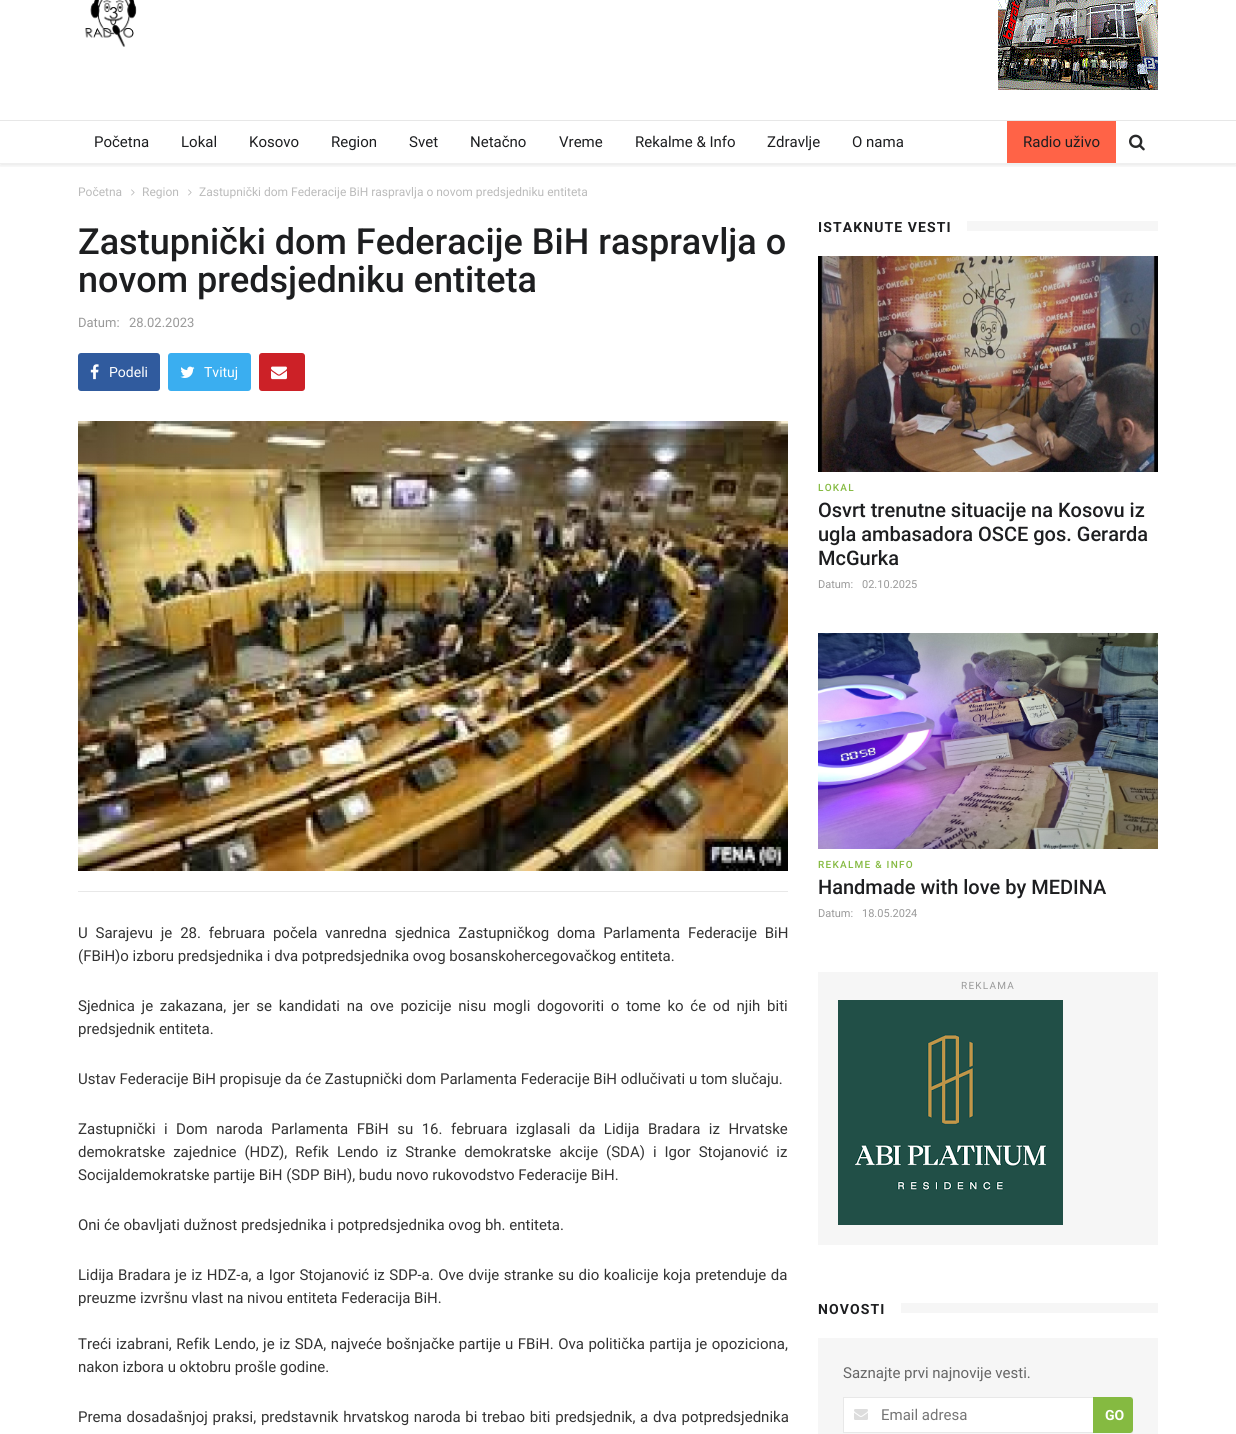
#include <cairo.h>
#include <math.h>
#include <stddef.h>

static cairo_t *ctx;

static void use_color(int r, int g, int b) {
    cairo_set_source_rgb(ctx, r / 255.0, g / 255.0, b / 255.0);
}

static void spaced_text(double x, double y, const char *s, double letter, double word) {
    cairo_move_to(ctx, x, y);
    while (*s) {
        char ch[5] = {0};
        int n = 0;
        do ch[n++] = *s++; while ((*s & 0xC0) == 0x80);
        cairo_show_text(ctx, ch);
        cairo_rel_move_to(ctx, letter + word * (*ch == ' '), 0);
    }
}

static void round_rect(double x, double y, double w, double h, double r) {
    cairo_new_sub_path(ctx);
    cairo_arc(ctx, x + w - r, y + h - r, r, 0, M_PI / 2);
    cairo_arc(ctx, x + r, y + h - r, r, M_PI / 2, M_PI);
    cairo_arc(ctx, x + r, y + r, r, M_PI, 1.5 * M_PI);
    cairo_arc(ctx, x + w - r, y + r, r, 1.5 * M_PI, 2 * M_PI);
    cairo_close_path(ctx);
}

static void shadow(double x, double y, double w, double h, double r, double blur, double alpha) {
    cairo_push_group_with_content(ctx, CAIRO_CONTENT_ALPHA);
    cairo_set_operator(ctx, CAIRO_OPERATOR_SOURCE);
    for (int i = 15; i >= -15 && fmin(w, h) + blur * i / 3 > 0; i -= 2) {
        double e = blur * i / 6;
        cairo_set_source_rgba(ctx, 0, 0, 0, alpha * erfc((i - 1) / 8.5) / 2);
        round_rect(x - e, y - e, w + 2 * e, h + 2 * e, fmax(0, fmin(r + e + blur * .6, fmin(w, h) / 2 + e)));
        cairo_fill(ctx);
    }
    cairo_pattern_t *soft = cairo_pop_group(ctx);
    cairo_mask(ctx, soft);
    cairo_pattern_destroy(soft);
}

static void picture(const char *path, double x, double y, double w, double h) {
    cairo_surface_t *image = cairo_image_surface_create_from_png(path);
    cairo_save(ctx);
    cairo_set_source_surface(ctx, image, x, y);
    cairo_rectangle(ctx, x, y, w, h);
    cairo_fill(ctx);
    cairo_restore(ctx);
    cairo_surface_destroy(image);
}

int main(void) {
    cairo_surface_t *surface = cairo_image_surface_create(CAIRO_FORMAT_RGB24, 1236, 1434);
    ctx = cairo_create(surface);
    cairo_font_options_t *options = cairo_font_options_create();
    cairo_font_options_set_hint_metrics(options, CAIRO_HINT_METRICS_OFF);
    cairo_font_options_set_hint_style(options, CAIRO_HINT_STYLE_NONE);
    cairo_set_font_options(ctx, options);
    cairo_set_miter_limit(ctx, 4);
    use_color(255, 255, 255);
    cairo_paint(ctx);
    cairo_save(ctx);
    cairo_rectangle(ctx, 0, 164, 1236, 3);
    cairo_clip(ctx);
    use_color(0, 0, 0);
    shadow(0, -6, 1236, 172, 0, 2, 0.08);
    cairo_restore(ctx);
    use_color(239, 239, 239);
    cairo_rectangle(ctx, 0, 163, 1236, 1);
    cairo_fill(ctx);
    use_color(231, 231, 231);
    cairo_rectangle(ctx, 0, 120, 1236, 1);
    cairo_fill(ctx);
    picture("img1.png", 85, 0, 52, 47);
    picture("img2.png", 998, 0, 160, 90);
    cairo_select_font_face(ctx, "Roboto", CAIRO_FONT_SLANT_NORMAL, CAIRO_FONT_WEIGHT_NORMAL);
    cairo_set_font_size(ctx, 15);
    use_color(29, 30, 32);
    cairo_move_to(ctx, 94, 147);
    cairo_show_text(ctx, "Početna");
    cairo_move_to(ctx, 181, 147);
    cairo_show_text(ctx, "Lokal");
    cairo_move_to(ctx, 249, 147);
    cairo_show_text(ctx, "Kosovo");
    cairo_move_to(ctx, 331, 147);
    cairo_show_text(ctx, "Region");
    cairo_move_to(ctx, 409, 147);
    cairo_show_text(ctx, "Svet");
    cairo_move_to(ctx, 470, 147);
    cairo_show_text(ctx, "Netačno");
    cairo_move_to(ctx, 559, 147);
    cairo_show_text(ctx, "Vreme");
    cairo_move_to(ctx, 635, 147);
    cairo_show_text(ctx, "Rekalme & Info");
    cairo_move_to(ctx, 767, 147);
    cairo_show_text(ctx, "Zdravlje");
    cairo_move_to(ctx, 852, 147);
    cairo_show_text(ctx, "O nama");
    use_color(255, 99, 71);
    cairo_rectangle(ctx, 1007, 121, 109, 42);
    cairo_fill(ctx);
    use_color(29, 30, 32);
    cairo_move_to(ctx, 1023, 147);
    cairo_show_text(ctx, "Radio uživo");
    picture("img3.png", 1129, 134, 16, 17);
    cairo_set_font_size(ctx, 12);
    use_color(187, 187, 187);
    cairo_move_to(ctx, 78, 196);
    cairo_show_text(ctx, "Početna");
    picture("img4.png", 131, 189, 4, 7);
    cairo_move_to(ctx, 142, 196);
    cairo_show_text(ctx, "Region");
    picture("img4.png", 188, 189, 4, 7);
    cairo_move_to(ctx, 199, 196);
    cairo_show_text(ctx, "Zastupnički dom Federacije BiH raspravlja o novom predsjedniku entiteta");
    cairo_select_font_face(ctx, "Roboto Medium", CAIRO_FONT_SLANT_NORMAL, CAIRO_FONT_WEIGHT_NORMAL);
    cairo_set_font_size(ctx, 36);
    use_color(29, 30, 32);
    cairo_move_to(ctx, 78, 254);
    cairo_show_text(ctx, "Zastupnički dom Federacije BiH raspravlja o");
    cairo_move_to(ctx, 78, 292);
    cairo_show_text(ctx, "novom predsjedniku entiteta");
    cairo_select_font_face(ctx, "Roboto", CAIRO_FONT_SLANT_NORMAL, CAIRO_FONT_WEIGHT_NORMAL);
    cairo_set_font_size(ctx, 13);
    use_color(153, 153, 153);
    cairo_move_to(ctx, 78, 327);
    cairo_show_text(ctx, "Datum:");
    cairo_move_to(ctx, 129, 327);
    cairo_show_text(ctx, "28.02.2023");
    use_color(48, 91, 158);
    round_rect(78, 353, 82, 38, 3);
    cairo_fill(ctx);
    picture("img5.png", 90, 364, 9, 16);
    cairo_set_font_size(ctx, 14);
    use_color(255, 255, 255);
    cairo_move_to(ctx, 109, 377);
    cairo_show_text(ctx, "Podeli");
    use_color(58, 174, 240);
    round_rect(168, 353, 83, 38, 3);
    cairo_fill(ctx);
    picture("img6.png", 180, 366, 15, 12);
    use_color(255, 255, 255);
    cairo_move_to(ctx, 204, 377);
    cairo_show_text(ctx, "Tvituj");
    use_color(204, 33, 39);
    round_rect(259, 353, 46, 38, 3);
    cairo_fill(ctx);
    picture("img7.png", 271, 366, 16, 14);
    picture("img8.png", 78, 421, 710, 450);
    use_color(232, 232, 232);
    cairo_rectangle(ctx, 78, 891, 710, 1);
    cairo_fill(ctx);
    cairo_set_font_size(ctx, 15);
    use_color(51, 51, 51);
    spaced_text(78, 938, "U Sarajevu je 28. februara počela vanredna sjednica Zastupničkog doma Parlamenta Federacije BiH", 0, 4.1);
    cairo_move_to(ctx, 78, 961);
    cairo_show_text(ctx, "(FBiH)o izboru predsjednika i dva potpredsjednika ovog bosanskohercegovačkog entiteta.");
    spaced_text(78, 1011, "Sjednica je zakazana, jer se kandidati na ove pozicije nisu mogli dogovoriti o tome ko će od njih biti", 0, 3);
    cairo_move_to(ctx, 78, 1034);
    cairo_show_text(ctx, "predsjednik entiteta.");
    cairo_move_to(ctx, 78, 1084);
    cairo_show_text(ctx, "Ustav Federacije BiH propisuje da će Zastupnički dom Parlamenta Federacije BiH odlučivati u tom slučaju.");
    spaced_text(78, 1134, "Zastupnički i Dom naroda Parlamenta FBiH su 16. februara izglasali da Lidija Bradara iz Hrvatske", 0, 4.75);
    spaced_text(78, 1157, "demokratske zajednice (HDZ), Refik Lendo iz Stranke demokratske akcije (SDA) i Igor Stojanović iz", 0, 4.25);
    cairo_move_to(ctx, 78, 1180);
    cairo_show_text(ctx, "Socijaldemokratske partije BiH (SDP BiH), budu novo rukovodstvo Federacije BiH.");
    cairo_move_to(ctx, 78, 1230);
    cairo_show_text(ctx, "Oni će obavljati dužnost predsjednika i potpredsjednika ovog bh. entiteta.");
    spaced_text(78, 1280, "Lidija Bradara je iz HDZ-a, a Igor Stojanović iz SDP-a. Ove dvije stranke su dio koalicije koja pretenduje da", 0, 0.8);
    cairo_move_to(ctx, 78, 1303);
    cairo_show_text(ctx, "preuzme izvršnu vlast na nivou entiteta Federacija BiH.");
    spaced_text(78, 1349, "Treći izabrani, Refik Lendo, je iz SDA, najveće bošnjačke partije u FBiH. Ova politička partija je opoziciona,", 0, 0.75);
    cairo_move_to(ctx, 78, 1372);
    cairo_show_text(ctx, "nakon izbora u oktobru prošle godine.");
    spaced_text(78, 1422, "Prema dosadašnjoj praksi, predstavnik hrvatskog naroda bi trebao biti predsjednik, a dva potpredsjednika", 0, 1);
    use_color(246, 246, 246);
    cairo_rectangle(ctx, 967, 221, 191, 10);
    cairo_fill(ctx);
    cairo_select_font_face(ctx, "Roboto", CAIRO_FONT_SLANT_NORMAL, CAIRO_FONT_WEIGHT_BOLD);
    cairo_set_font_size(ctx, 14);
    use_color(29, 30, 32);
    spaced_text(818, 232, "ISTAKNUTE VESTI", 1.1, 0);
    picture("img9.png", 818, 256, 340, 216);
    cairo_select_font_face(ctx, "Roboto Medium", CAIRO_FONT_SLANT_NORMAL, CAIRO_FONT_WEIGHT_NORMAL);
    cairo_set_font_size(ctx, 10);
    use_color(133, 186, 65);
    spaced_text(818, 491, "LOKAL", 1.25, 0);
    cairo_set_font_size(ctx, 20);
    use_color(29, 30, 32);
    cairo_move_to(ctx, 818, 517);
    cairo_show_text(ctx, "Osvrt trenutne situacije na Kosovu iz");
    cairo_move_to(ctx, 818, 541);
    cairo_show_text(ctx, "ugla ambasadora OSCE gos. Gerarda");
    cairo_move_to(ctx, 818, 565);
    cairo_show_text(ctx, "McGurka");
    cairo_select_font_face(ctx, "Roboto", CAIRO_FONT_SLANT_NORMAL, CAIRO_FONT_WEIGHT_NORMAL);
    cairo_set_font_size(ctx, 11);
    use_color(153, 153, 153);
    cairo_move_to(ctx, 818, 588);
    cairo_show_text(ctx, "Datum:");
    cairo_move_to(ctx, 862, 588);
    cairo_show_text(ctx, "02.10.2025");
    picture("img10.png", 818, 633, 340, 216);
    cairo_select_font_face(ctx, "Roboto Medium", CAIRO_FONT_SLANT_NORMAL, CAIRO_FONT_WEIGHT_NORMAL);
    cairo_set_font_size(ctx, 10);
    use_color(133, 186, 65);
    spaced_text(818, 868, "REKALME & INFO", 1.25, 0);
    cairo_set_font_size(ctx, 20);
    use_color(29, 30, 32);
    cairo_move_to(ctx, 818, 894);
    cairo_show_text(ctx, "Handmade with love by MEDINA");
    cairo_select_font_face(ctx, "Roboto", CAIRO_FONT_SLANT_NORMAL, CAIRO_FONT_WEIGHT_NORMAL);
    cairo_set_font_size(ctx, 11);
    use_color(153, 153, 153);
    cairo_move_to(ctx, 818, 917);
    cairo_show_text(ctx, "Datum:");
    cairo_move_to(ctx, 862, 917);
    cairo_show_text(ctx, "18.05.2024");
    use_color(246, 246, 246);
    cairo_rectangle(ctx, 818, 972, 340, 273);
    cairo_fill(ctx);
    cairo_set_font_size(ctx, 10);
    use_color(153, 153, 153);
    spaced_text(961, 989, "REKLAMA", 1.25, 0);
    picture("img11.png", 838, 1000, 225, 225);
    use_color(246, 246, 246);
    cairo_rectangle(ctx, 901, 1303, 257, 10);
    cairo_fill(ctx);
    cairo_select_font_face(ctx, "Roboto", CAIRO_FONT_SLANT_NORMAL, CAIRO_FONT_WEIGHT_BOLD);
    cairo_set_font_size(ctx, 14);
    use_color(29, 30, 32);
    spaced_text(818, 1314, "NOVOSTI", 1.1, 0);
    use_color(246, 246, 246);
    cairo_rectangle(ctx, 818, 1338, 340, 96);
    cairo_fill(ctx);
    cairo_select_font_face(ctx, "Roboto", CAIRO_FONT_SLANT_NORMAL, CAIRO_FONT_WEIGHT_NORMAL);
    cairo_set_font_size(ctx, 15);
    use_color(102, 102, 102);
    cairo_move_to(ctx, 843, 1378);
    cairo_show_text(ctx, "Saznajte prvi najnovije vesti.");
    use_color(255, 255, 255);
    cairo_rectangle(ctx, 844, 1398, 249, 34);
    cairo_fill(ctx);
    cairo_rectangle(ctx, 843.5, 1397.5, 289, 35);
    use_color(232, 232, 232);
    cairo_set_line_width(ctx, 1);
    cairo_stroke(ctx);
    picture("img12.png", 854, 1409, 14, 11);
    use_color(117, 117, 117);
    cairo_move_to(ctx, 881, 1420);
    cairo_show_text(ctx, "Email adresa");
    use_color(133, 186, 65);
    cairo_new_path(ctx);
    cairo_move_to(ctx, 1093, 1397);
    cairo_line_to(ctx, 1130, 1397);
    cairo_curve_to(ctx, 1131.5, 1397, 1133, 1398.5, 1133, 1400);
    cairo_line_to(ctx, 1133, 1430);
    cairo_curve_to(ctx, 1133, 1431.5, 1131.5, 1433, 1130, 1433);
    cairo_line_to(ctx, 1093, 1433);
    cairo_close_path(ctx);
    cairo_fill(ctx);
    cairo_select_font_face(ctx, "Roboto", CAIRO_FONT_SLANT_NORMAL, CAIRO_FONT_WEIGHT_BOLD);
    cairo_set_font_size(ctx, 14);
    use_color(255, 255, 255);
    cairo_move_to(ctx, 1105, 1420);
    cairo_show_text(ctx, "GO");
    cairo_surface_write_to_png(surface, "result.png");
    cairo_font_options_destroy(options);
    cairo_destroy(ctx);
    cairo_surface_destroy(surface);
    return 0;
}
